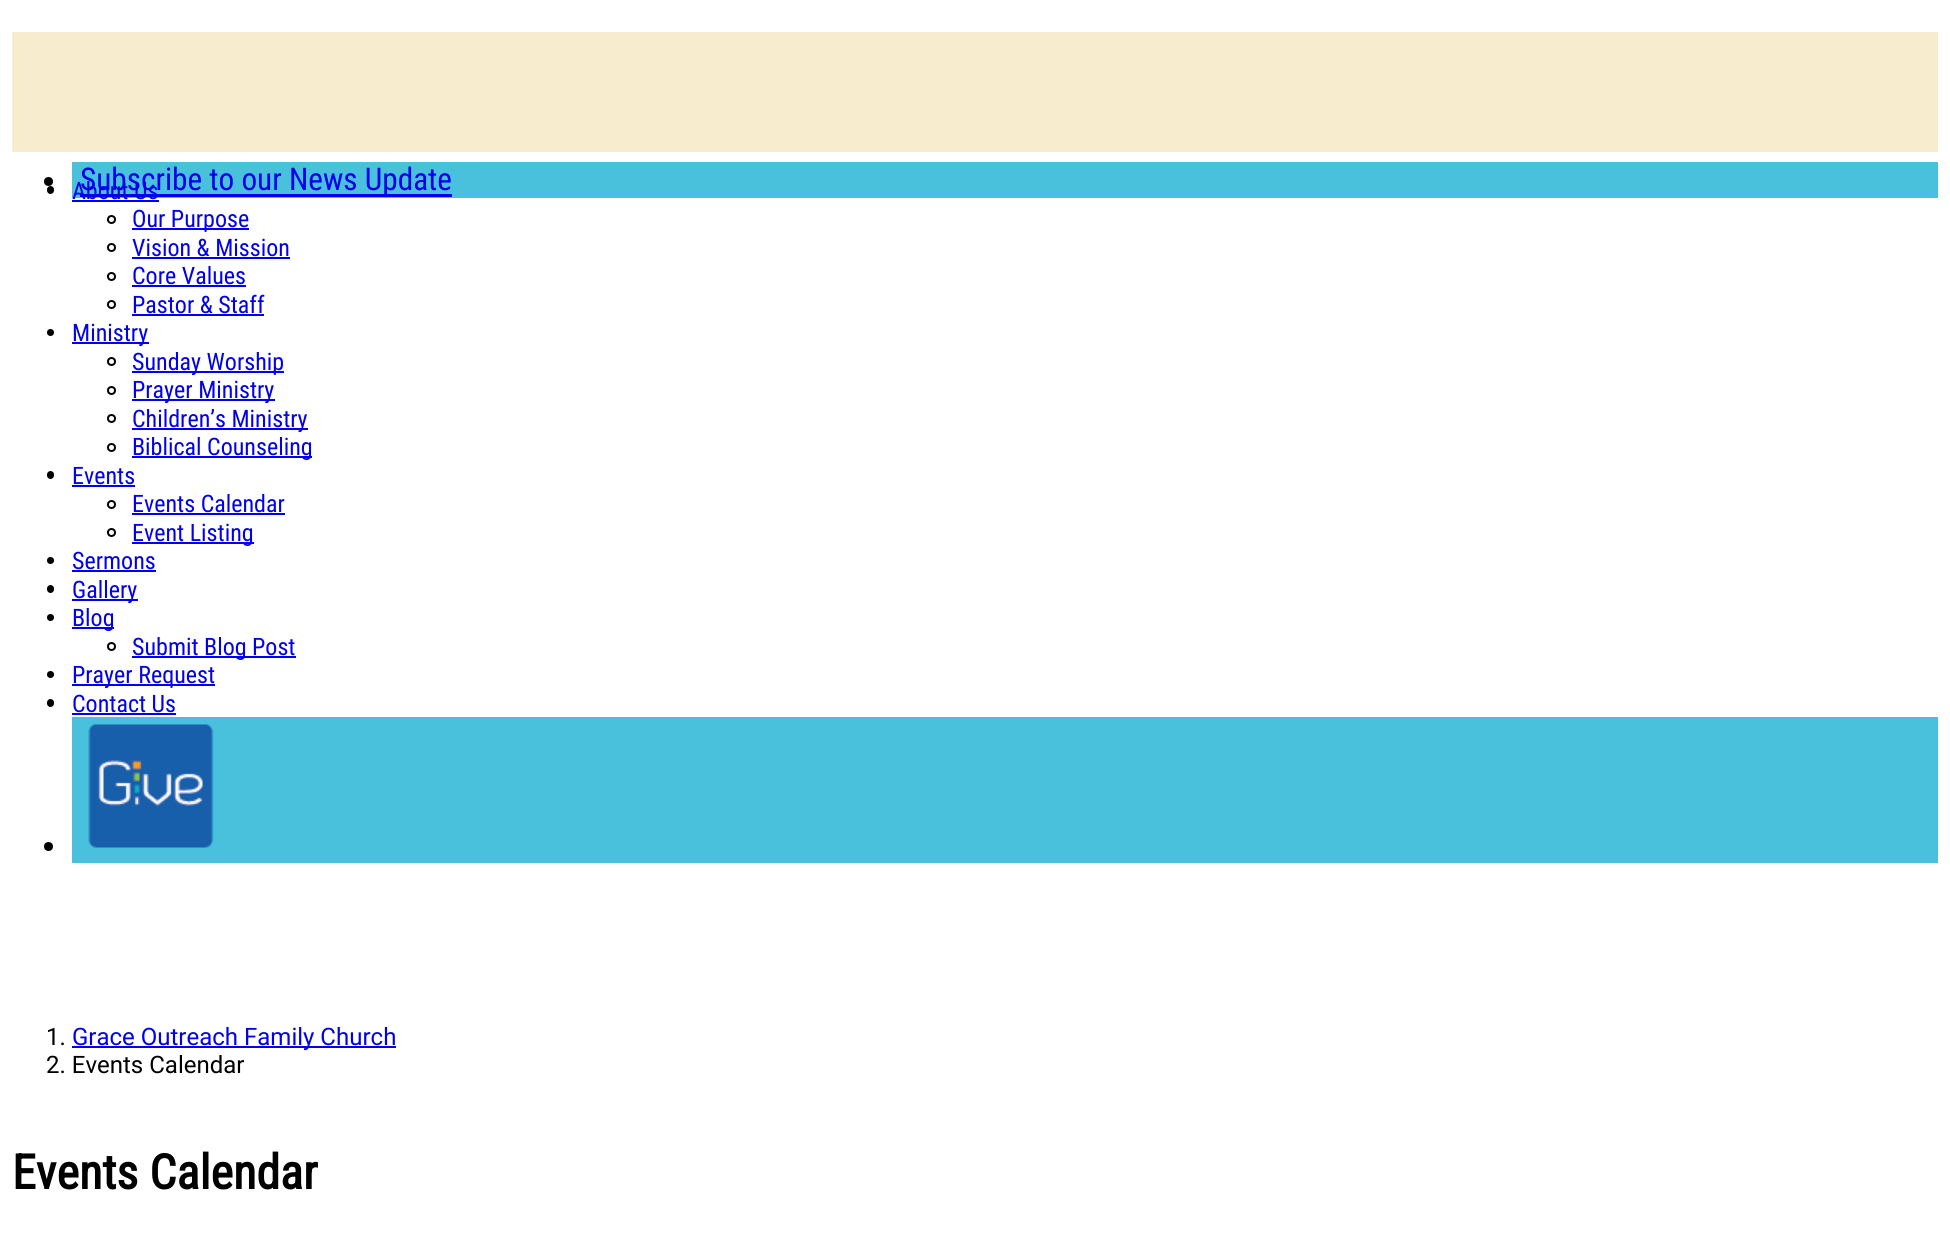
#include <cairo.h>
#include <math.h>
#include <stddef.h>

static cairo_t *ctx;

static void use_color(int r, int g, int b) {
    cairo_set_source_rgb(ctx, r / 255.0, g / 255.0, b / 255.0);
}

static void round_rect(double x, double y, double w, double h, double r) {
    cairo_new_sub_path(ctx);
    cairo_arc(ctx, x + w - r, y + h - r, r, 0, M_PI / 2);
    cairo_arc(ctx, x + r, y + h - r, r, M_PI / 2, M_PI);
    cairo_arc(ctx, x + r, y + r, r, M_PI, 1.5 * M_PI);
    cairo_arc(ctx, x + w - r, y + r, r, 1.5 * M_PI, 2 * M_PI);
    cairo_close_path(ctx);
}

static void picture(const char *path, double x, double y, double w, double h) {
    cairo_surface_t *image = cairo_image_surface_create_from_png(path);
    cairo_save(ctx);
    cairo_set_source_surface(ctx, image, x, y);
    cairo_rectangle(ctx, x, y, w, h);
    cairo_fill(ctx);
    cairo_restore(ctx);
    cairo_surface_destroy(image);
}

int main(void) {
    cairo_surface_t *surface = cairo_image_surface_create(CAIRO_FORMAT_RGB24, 1950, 1242);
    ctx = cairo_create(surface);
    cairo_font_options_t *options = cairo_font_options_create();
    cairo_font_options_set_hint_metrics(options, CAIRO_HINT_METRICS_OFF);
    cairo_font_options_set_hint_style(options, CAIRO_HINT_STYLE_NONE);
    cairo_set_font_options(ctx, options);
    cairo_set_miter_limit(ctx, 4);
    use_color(255, 255, 255);
    cairo_paint(ctx);
    use_color(247, 237, 206);
    cairo_rectangle(ctx, 12, 32, 1926, 120);
    cairo_fill(ctx);
    use_color(73, 193, 221);
    cairo_rectangle(ctx, 72, 162, 1866, 36);
    cairo_fill(ctx);
    use_color(0, 0, 0);
    cairo_arc(ctx, 48.5, 181.5, 4.5, 0, 2 * M_PI);
    cairo_fill(ctx);
    use_color(0, 0, 238);
    cairo_rectangle(ctx, 80, 194, 372, 3);
    cairo_fill(ctx);
    cairo_select_font_face(ctx, "Roboto Condensed", CAIRO_FONT_SLANT_NORMAL, CAIRO_FONT_WEIGHT_NORMAL);
    cairo_set_font_size(ctx, 31.25);
    cairo_move_to(ctx, 80, 190);
    cairo_show_text(ctx, "Subscribe to our News Update");
    use_color(0, 0, 0);
    round_rect(47, 186, 7, 8, 3.5);
    cairo_fill(ctx);
    cairo_set_font_size(ctx, 24);
    use_color(0, 0, 238);
    cairo_move_to(ctx, 72, 199);
    cairo_show_text(ctx, "About Us");
    cairo_rectangle(ctx, 72, 200, 87, 2);
    cairo_fill(ctx);
    cairo_arc(ctx, 111.5, 219.5, 3.5, 0, 2 * M_PI);
    use_color(0, 0, 0);
    cairo_stroke(ctx);
    use_color(0, 0, 238);
    cairo_rectangle(ctx, 132, 228, 117, 2);
    cairo_fill(ctx);
    cairo_move_to(ctx, 132, 227);
    cairo_show_text(ctx, "Our Purpose");
    cairo_new_path(ctx);
    cairo_arc(ctx, 111.5, 247.5, 3.5, 0, 2 * M_PI);
    use_color(0, 0, 0);
    cairo_stroke(ctx);
    use_color(0, 0, 238);
    cairo_move_to(ctx, 132, 256);
    cairo_show_text(ctx, "Vision & Mission");
    cairo_rectangle(ctx, 132, 257, 158, 2);
    cairo_fill(ctx);
    cairo_arc(ctx, 111.5, 276.5, 3.5, 0, 2 * M_PI);
    use_color(0, 0, 0);
    cairo_stroke(ctx);
    use_color(0, 0, 238);
    cairo_move_to(ctx, 132, 284);
    cairo_show_text(ctx, "Core Values");
    cairo_rectangle(ctx, 132, 285, 114, 2);
    cairo_fill(ctx);
    cairo_arc(ctx, 111.5, 304.5, 3.5, 0, 2 * M_PI);
    use_color(0, 0, 0);
    cairo_stroke(ctx);
    use_color(0, 0, 238);
    cairo_move_to(ctx, 132, 313);
    cairo_show_text(ctx, "Pastor & Staff");
    cairo_rectangle(ctx, 132, 314, 132, 2);
    cairo_fill(ctx);
    use_color(0, 0, 0);
    cairo_arc(ctx, 50.5, 332.5, 3.5, 0, 2 * M_PI);
    cairo_fill(ctx);
    use_color(0, 0, 238);
    cairo_rectangle(ctx, 72, 342, 77, 2);
    cairo_fill(ctx);
    cairo_move_to(ctx, 72, 341);
    cairo_show_text(ctx, "Ministry");
    cairo_new_path(ctx);
    cairo_arc(ctx, 111.5, 361.5, 3.5, 0, 2 * M_PI);
    use_color(0, 0, 0);
    cairo_stroke(ctx);
    use_color(0, 0, 238);
    cairo_rectangle(ctx, 132, 371, 152, 2);
    cairo_fill(ctx);
    cairo_move_to(ctx, 132, 370);
    cairo_show_text(ctx, "Sunday Worship");
    cairo_new_path(ctx);
    cairo_arc(ctx, 111.5, 390.5, 3.5, 0, 2 * M_PI);
    use_color(0, 0, 0);
    cairo_stroke(ctx);
    use_color(0, 0, 238);
    cairo_rectangle(ctx, 132, 399, 143, 2);
    cairo_fill(ctx);
    cairo_move_to(ctx, 132, 398);
    cairo_show_text(ctx, "Prayer Ministry");
    cairo_new_path(ctx);
    cairo_arc(ctx, 111.5, 418.5, 3.5, 0, 2 * M_PI);
    use_color(0, 0, 0);
    cairo_stroke(ctx);
    use_color(0, 0, 238);
    cairo_rectangle(ctx, 132, 428, 176, 2);
    cairo_fill(ctx);
    cairo_move_to(ctx, 132, 427);
    cairo_show_text(ctx, "Children’s Ministry");
    cairo_new_path(ctx);
    cairo_arc(ctx, 111.5, 447.5, 3.5, 0, 2 * M_PI);
    use_color(0, 0, 0);
    cairo_stroke(ctx);
    use_color(0, 0, 238);
    cairo_rectangle(ctx, 132, 456, 180, 2);
    cairo_fill(ctx);
    cairo_move_to(ctx, 132, 455);
    cairo_show_text(ctx, "Biblical Counseling");
    use_color(0, 0, 0);
    round_rect(47, 471, 7, 8, 3.5);
    cairo_fill(ctx);
    use_color(0, 0, 238);
    cairo_move_to(ctx, 72, 484);
    cairo_show_text(ctx, "Events");
    cairo_rectangle(ctx, 72, 485, 63, 2);
    cairo_fill(ctx);
    cairo_arc(ctx, 111.5, 504.5, 3.5, 0, 2 * M_PI);
    use_color(0, 0, 0);
    cairo_stroke(ctx);
    use_color(0, 0, 238);
    cairo_move_to(ctx, 132, 512);
    cairo_show_text(ctx, "Events Calendar");
    cairo_rectangle(ctx, 132, 513, 153, 2);
    cairo_fill(ctx);
    cairo_arc(ctx, 111.5, 532.5, 3.5, 0, 2 * M_PI);
    use_color(0, 0, 0);
    cairo_stroke(ctx);
    use_color(0, 0, 238);
    cairo_rectangle(ctx, 132, 542, 122, 2);
    cairo_fill(ctx);
    cairo_move_to(ctx, 132, 541);
    cairo_show_text(ctx, "Event Listing");
    use_color(0, 0, 0);
    cairo_new_path(ctx);
    cairo_arc(ctx, 50.5, 560.5, 3.5, 0, 2 * M_PI);
    cairo_fill(ctx);
    use_color(0, 0, 238);
    cairo_move_to(ctx, 72, 569);
    cairo_show_text(ctx, "Sermons");
    cairo_rectangle(ctx, 72, 570, 84, 2);
    cairo_fill(ctx);
    use_color(0, 0, 0);
    round_rect(47, 585, 7, 8, 3.5);
    cairo_fill(ctx);
    use_color(0, 0, 238);
    cairo_rectangle(ctx, 72, 599, 66, 2);
    cairo_fill(ctx);
    cairo_move_to(ctx, 72, 598);
    cairo_show_text(ctx, "Gallery");
    use_color(0, 0, 0);
    cairo_new_path(ctx);
    cairo_arc(ctx, 50.5, 617.5, 3.5, 0, 2 * M_PI);
    cairo_fill(ctx);
    use_color(0, 0, 238);
    cairo_rectangle(ctx, 72, 627, 42, 2);
    cairo_fill(ctx);
    cairo_move_to(ctx, 72, 626);
    cairo_show_text(ctx, "Blog");
    cairo_new_path(ctx);
    cairo_arc(ctx, 111.5, 646.5, 3.5, 0, 2 * M_PI);
    use_color(0, 0, 0);
    cairo_stroke(ctx);
    use_color(0, 0, 238);
    cairo_rectangle(ctx, 132, 656, 164, 2);
    cairo_fill(ctx);
    cairo_move_to(ctx, 132, 655);
    cairo_show_text(ctx, "Submit Blog Post");
    use_color(0, 0, 0);
    cairo_new_path(ctx);
    cairo_arc(ctx, 50.5, 674.5, 3.5, 0, 2 * M_PI);
    cairo_fill(ctx);
    use_color(0, 0, 238);
    cairo_rectangle(ctx, 72, 684, 143, 2);
    cairo_fill(ctx);
    cairo_move_to(ctx, 72, 683);
    cairo_show_text(ctx, "Prayer Request");
    use_color(0, 0, 0);
    round_rect(47, 699, 7, 8, 3.5);
    cairo_fill(ctx);
    use_color(0, 0, 238);
    cairo_move_to(ctx, 72, 712);
    cairo_show_text(ctx, "Contact Us");
    cairo_rectangle(ctx, 72, 713, 104, 2);
    cairo_fill(ctx);
    use_color(73, 193, 221);
    cairo_rectangle(ctx, 72, 717, 1866, 146);
    cairo_fill(ctx);
    use_color(0, 0, 0);
    cairo_arc(ctx, 48.5, 846.5, 4.5, 0, 2 * M_PI);
    cairo_fill(ctx);
    picture("img1.png", 88, 724, 126, 124);
    cairo_select_font_face(ctx, "Roboto", CAIRO_FONT_SLANT_NORMAL, CAIRO_FONT_WEIGHT_NORMAL);
    cairo_move_to(ctx, 46, 1045);
    cairo_show_text(ctx, "1.");
    use_color(0, 0, 238);
    cairo_rectangle(ctx, 72, 1046, 324, 2);
    cairo_fill(ctx);
    cairo_move_to(ctx, 72, 1045);
    cairo_show_text(ctx, "Grace Outreach Family Church");
    use_color(0, 0, 0);
    cairo_move_to(ctx, 46, 1073);
    cairo_show_text(ctx, "2. Events Calendar");
    cairo_select_font_face(ctx, "Roboto Condensed", CAIRO_FONT_SLANT_NORMAL, CAIRO_FONT_WEIGHT_BOLD);
    cairo_set_font_size(ctx, 48);
    cairo_move_to(ctx, 12, 1189);
    cairo_show_text(ctx, "Events Calendar");
    cairo_surface_write_to_png(surface, "result.png");
    cairo_font_options_destroy(options);
    cairo_destroy(ctx);
    cairo_surface_destroy(surface);
    return 0;
}
